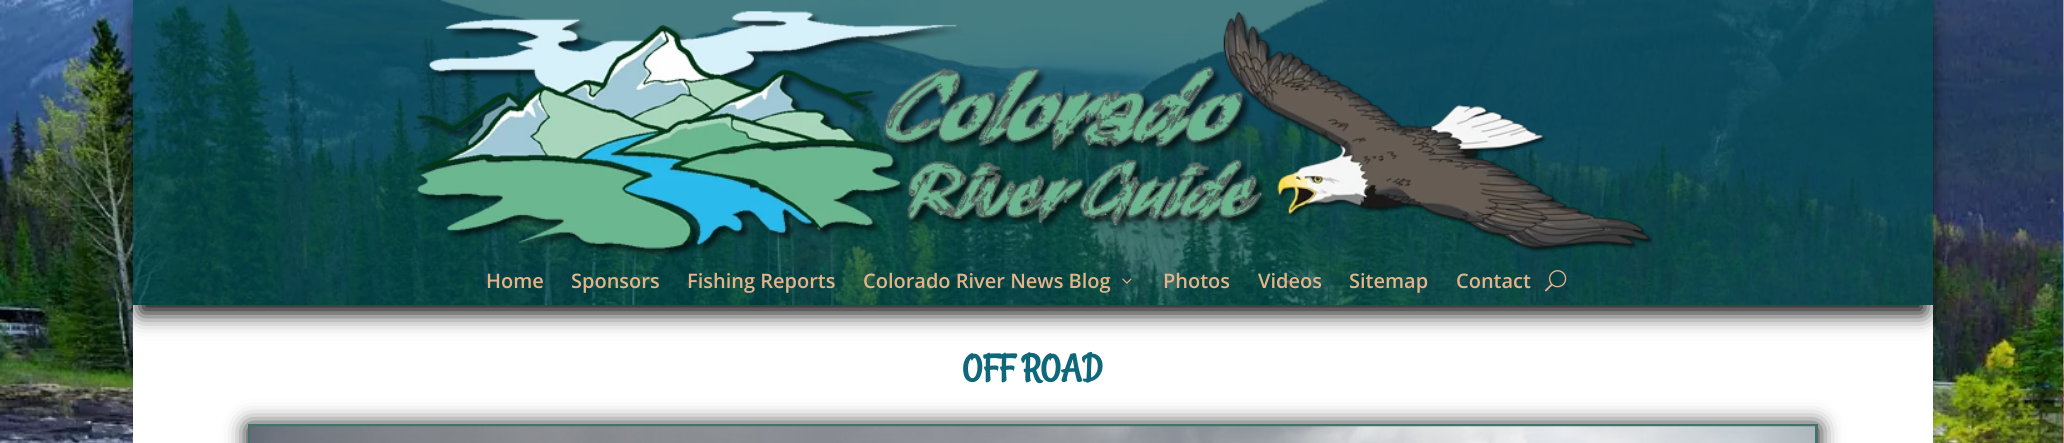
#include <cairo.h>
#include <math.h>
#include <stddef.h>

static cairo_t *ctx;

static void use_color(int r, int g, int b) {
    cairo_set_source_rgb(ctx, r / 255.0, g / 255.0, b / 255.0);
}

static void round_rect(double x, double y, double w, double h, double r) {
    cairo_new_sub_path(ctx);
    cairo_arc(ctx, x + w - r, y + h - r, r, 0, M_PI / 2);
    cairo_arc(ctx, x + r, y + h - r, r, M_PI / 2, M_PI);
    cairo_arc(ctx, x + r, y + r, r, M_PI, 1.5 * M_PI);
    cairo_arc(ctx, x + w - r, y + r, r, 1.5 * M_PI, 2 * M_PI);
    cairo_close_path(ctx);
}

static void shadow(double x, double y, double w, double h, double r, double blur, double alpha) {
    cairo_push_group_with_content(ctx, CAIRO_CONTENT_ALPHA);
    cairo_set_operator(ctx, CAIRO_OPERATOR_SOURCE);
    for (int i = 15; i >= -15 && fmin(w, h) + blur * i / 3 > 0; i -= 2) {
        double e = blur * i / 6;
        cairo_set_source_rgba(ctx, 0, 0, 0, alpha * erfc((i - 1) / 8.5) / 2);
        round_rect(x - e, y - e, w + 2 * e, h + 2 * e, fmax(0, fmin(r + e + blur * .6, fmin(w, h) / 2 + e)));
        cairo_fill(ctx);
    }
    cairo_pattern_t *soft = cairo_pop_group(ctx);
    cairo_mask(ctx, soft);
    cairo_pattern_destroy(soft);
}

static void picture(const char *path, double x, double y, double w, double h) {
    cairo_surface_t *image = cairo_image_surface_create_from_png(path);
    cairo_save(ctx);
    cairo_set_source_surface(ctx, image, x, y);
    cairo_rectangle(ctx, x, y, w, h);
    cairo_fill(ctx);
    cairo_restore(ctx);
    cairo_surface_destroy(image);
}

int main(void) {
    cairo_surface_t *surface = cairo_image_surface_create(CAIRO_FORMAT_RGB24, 2064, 443);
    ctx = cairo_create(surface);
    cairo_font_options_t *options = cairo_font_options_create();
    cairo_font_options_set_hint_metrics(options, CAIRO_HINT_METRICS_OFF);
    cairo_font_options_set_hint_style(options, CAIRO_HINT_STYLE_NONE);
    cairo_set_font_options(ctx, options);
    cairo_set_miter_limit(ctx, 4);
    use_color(255, 255, 255);
    cairo_paint(ctx);
    picture("img1.png", 0, 0, 2064, 443);
    cairo_save(ctx);
    cairo_set_fill_rule(ctx, CAIRO_FILL_RULE_EVEN_ODD);
    cairo_new_path(ctx);
    cairo_move_to(ctx, 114, 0);
    cairo_line_to(ctx, 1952, 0);
    cairo_line_to(ctx, 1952, 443);
    cairo_line_to(ctx, 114, 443);
    cairo_close_path(ctx);
    cairo_move_to(ctx, 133, 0);
    cairo_line_to(ctx, 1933, 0);
    cairo_line_to(ctx, 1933, 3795);
    cairo_line_to(ctx, 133, 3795);
    cairo_close_path(ctx);
    cairo_clip(ctx);
    use_color(0, 0, 0);
    shadow(133, 0, 1800, 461, 0, 6, 0.2);
    cairo_restore(ctx);
    use_color(255, 255, 255);
    cairo_rectangle(ctx, 133, 305, 1800, 138);
    cairo_fill(ctx);
    cairo_save(ctx);
    cairo_set_fill_rule(ctx, CAIRO_FILL_RULE_EVEN_ODD);
    cairo_new_path(ctx);
    cairo_move_to(ctx, 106, 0);
    cairo_line_to(ctx, 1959, 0);
    cairo_line_to(ctx, 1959, 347);
    cairo_line_to(ctx, 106, 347);
    cairo_close_path(ctx);
    cairo_move_to(ctx, 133, 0);
    cairo_line_to(ctx, 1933, 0);
    cairo_line_to(ctx, 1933, 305);
    cairo_line_to(ctx, 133, 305);
    cairo_close_path(ctx);
    cairo_clip(ctx);
    use_color(0, 0, 0);
    shadow(140, 23, 1785, 290, 0, 11, 1);
    cairo_restore(ctx);
    cairo_set_source_rgba(ctx, 0, 0.294, 0.329, 0.72);
    cairo_rectangle(ctx, 133, 0, 1800, 305);
    cairo_fill(ctx);
    picture("img2.png", 416, 11, 1237, 246);
    cairo_select_font_face(ctx, "Open Sans SemiBold", CAIRO_FONT_SLANT_NORMAL, CAIRO_FONT_WEIGHT_NORMAL);
    cairo_set_font_size(ctx, 20);
    use_color(228, 180, 137);
    cairo_move_to(ctx, 486, 288);
    cairo_show_text(ctx, "Home");
    cairo_move_to(ctx, 571, 288);
    cairo_show_text(ctx, "Sponsors");
    cairo_move_to(ctx, 687, 288);
    cairo_show_text(ctx, "Fishing Reports");
    cairo_move_to(ctx, 863, 288);
    cairo_show_text(ctx, "Colorado River News Blog");
    picture("img3.png", 1122, 278, 10, 6);
    cairo_move_to(ctx, 1163, 288);
    cairo_show_text(ctx, "Photos");
    cairo_move_to(ctx, 1258, 288);
    cairo_show_text(ctx, "Videos");
    cairo_move_to(ctx, 1349, 288);
    cairo_show_text(ctx, "Sitemap");
    cairo_move_to(ctx, 1456, 288);
    cairo_show_text(ctx, "Contact");
    picture("img4.png", 1545, 270, 22, 22);
    cairo_select_font_face(ctx, "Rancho", CAIRO_FONT_SLANT_NORMAL, CAIRO_FONT_WEIGHT_BOLD);
    cairo_set_font_size(ctx, 37.5);
    use_color(14, 104, 122);
    cairo_move_to(ctx, 962, 379);
    cairo_show_text(ctx, "OFF ROAD");
    use_color(0, 0, 0);
    shadow(248, 426, 1570, 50, 0, 11, 1);
    cairo_rectangle(ctx, 249.5, 425.5, 1567, 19);
    use_color(69, 114, 107);
    cairo_set_line_width(ctx, 3);
    cairo_stroke(ctx);
    picture("img5.png", 250, 426, 1565, 17);
    cairo_surface_write_to_png(surface, "result.png");
    cairo_font_options_destroy(options);
    cairo_destroy(ctx);
    cairo_surface_destroy(surface);
    return 0;
}
